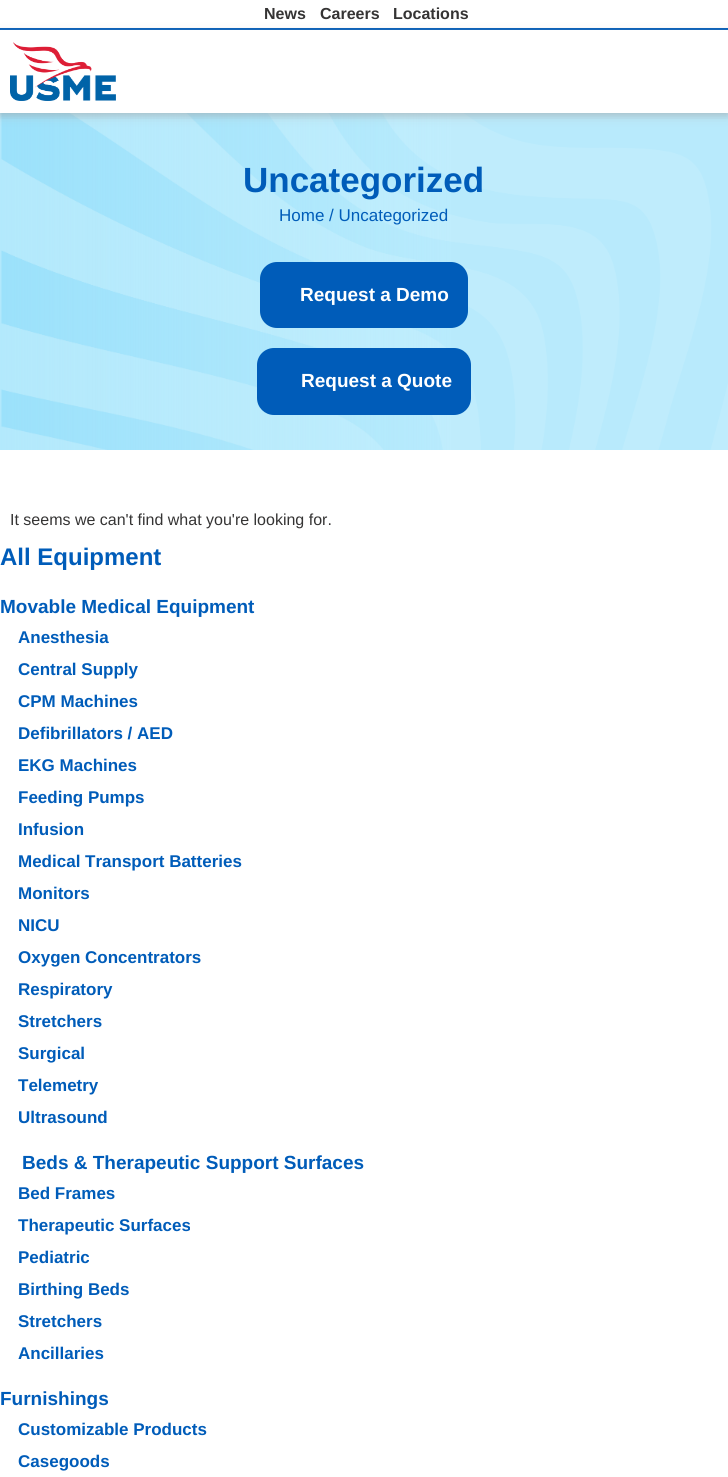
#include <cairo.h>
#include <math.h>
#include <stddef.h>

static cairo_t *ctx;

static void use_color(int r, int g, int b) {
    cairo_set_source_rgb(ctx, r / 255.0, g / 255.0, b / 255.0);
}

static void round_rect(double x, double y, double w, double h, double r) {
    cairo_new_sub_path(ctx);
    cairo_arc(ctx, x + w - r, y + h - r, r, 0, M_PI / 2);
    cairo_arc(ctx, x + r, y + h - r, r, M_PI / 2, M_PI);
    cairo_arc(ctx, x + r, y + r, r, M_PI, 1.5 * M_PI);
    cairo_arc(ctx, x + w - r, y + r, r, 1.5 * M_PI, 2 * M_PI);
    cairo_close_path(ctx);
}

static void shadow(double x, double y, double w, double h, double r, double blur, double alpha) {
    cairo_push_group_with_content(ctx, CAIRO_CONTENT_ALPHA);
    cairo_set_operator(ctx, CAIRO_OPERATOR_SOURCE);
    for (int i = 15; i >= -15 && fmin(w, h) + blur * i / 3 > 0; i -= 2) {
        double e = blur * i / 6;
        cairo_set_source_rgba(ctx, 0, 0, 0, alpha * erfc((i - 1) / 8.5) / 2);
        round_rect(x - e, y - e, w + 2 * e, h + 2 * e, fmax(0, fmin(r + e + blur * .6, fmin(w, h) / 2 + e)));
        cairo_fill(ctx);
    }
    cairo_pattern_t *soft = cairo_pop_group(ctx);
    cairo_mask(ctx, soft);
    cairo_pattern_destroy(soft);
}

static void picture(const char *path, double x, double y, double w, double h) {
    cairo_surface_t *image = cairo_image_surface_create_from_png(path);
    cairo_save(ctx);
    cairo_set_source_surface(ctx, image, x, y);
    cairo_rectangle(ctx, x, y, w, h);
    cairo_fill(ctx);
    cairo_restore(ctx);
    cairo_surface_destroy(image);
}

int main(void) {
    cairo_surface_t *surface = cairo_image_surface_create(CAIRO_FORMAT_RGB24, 728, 1477);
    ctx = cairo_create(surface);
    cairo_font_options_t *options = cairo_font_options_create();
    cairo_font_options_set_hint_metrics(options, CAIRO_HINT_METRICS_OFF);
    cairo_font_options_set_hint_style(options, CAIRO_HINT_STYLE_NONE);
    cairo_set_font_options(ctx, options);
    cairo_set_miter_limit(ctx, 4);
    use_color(255, 255, 255);
    cairo_paint(ctx);
    picture("img2.png", 0, 113, 728, 337);
    cairo_save(ctx);
    cairo_rectangle(ctx, 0, 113, 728, 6);
    cairo_clip(ctx);
    use_color(0, 0, 0);
    shadow(0, 0, 728, 113, 0, 5, 0.16);
    cairo_restore(ctx);
    use_color(0, 92, 185);
    cairo_rectangle(ctx, 0, 28, 728, 2);
    cairo_fill(ctx);
    cairo_select_font_face(ctx, "Liberation Sans", CAIRO_FONT_SLANT_NORMAL, CAIRO_FONT_WEIGHT_BOLD);
    cairo_set_font_size(ctx, 16);
    use_color(53, 52, 52);
    cairo_move_to(ctx, 264, 19);
    cairo_show_text(ctx, "News");
    cairo_move_to(ctx, 320, 19);
    cairo_show_text(ctx, "Careers");
    cairo_move_to(ctx, 393, 19);
    cairo_show_text(ctx, "Locations");
    cairo_save(ctx);
    cairo_set_fill_rule(ctx, CAIRO_FILL_RULE_EVEN_ODD);
    cairo_new_path(ctx);
    cairo_move_to(ctx, 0, 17);
    cairo_line_to(ctx, 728, 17);
    cairo_line_to(ctx, 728, 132);
    cairo_line_to(ctx, 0, 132);
    cairo_close_path(ctx);
    cairo_move_to(ctx, 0, 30);
    cairo_line_to(ctx, 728, 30);
    cairo_line_to(ctx, 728, 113);
    cairo_line_to(ctx, 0, 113);
    cairo_close_path(ctx);
    cairo_clip(ctx);
    use_color(178, 174, 174);
    shadow(0, 33, 728, 83, 0, 5, 0.5);
    cairo_restore(ctx);
    picture("img1.png", 10, 42, 106, 59);
    cairo_set_font_size(ctx, 35);
    use_color(0, 92, 185);
    cairo_move_to(ctx, 243, 192);
    cairo_show_text(ctx, "Uncategorized");
    cairo_select_font_face(ctx, "Liberation Sans", CAIRO_FONT_SLANT_NORMAL, CAIRO_FONT_WEIGHT_NORMAL);
    cairo_set_font_size(ctx, 17);
    cairo_move_to(ctx, 279, 221);
    cairo_show_text(ctx, "Home / Uncategorized");
    round_rect(260, 262, 208, 66, 17);
    cairo_fill(ctx);
    cairo_select_font_face(ctx, "Liberation Sans", CAIRO_FONT_SLANT_NORMAL, CAIRO_FONT_WEIGHT_BOLD);
    cairo_set_font_size(ctx, 19);
    use_color(255, 255, 255);
    cairo_move_to(ctx, 300, 301);
    cairo_show_text(ctx, "Request a Demo");
    use_color(0, 92, 185);
    round_rect(258, 349, 212, 65, 16);
    cairo_fill_preserve(ctx);
    cairo_stroke(ctx);
    use_color(255, 255, 255);
    cairo_move_to(ctx, 301, 387);
    cairo_show_text(ctx, "Request a Quote");
    cairo_select_font_face(ctx, "Liberation Sans", CAIRO_FONT_SLANT_NORMAL, CAIRO_FONT_WEIGHT_NORMAL);
    cairo_set_font_size(ctx, 16);
    use_color(53, 52, 52);
    cairo_move_to(ctx, 10, 525);
    cairo_show_text(ctx, "It seems we can't find what you're looking for.");
    cairo_select_font_face(ctx, "Liberation Sans", CAIRO_FONT_SLANT_NORMAL, CAIRO_FONT_WEIGHT_BOLD);
    cairo_set_font_size(ctx, 24);
    use_color(0, 92, 185);
    cairo_move_to(ctx, 0, 565);
    cairo_show_text(ctx, "All Equipment");
    cairo_set_font_size(ctx, 19);
    cairo_move_to(ctx, 0, 613);
    cairo_show_text(ctx, "Movable Medical Equipment");
    cairo_set_font_size(ctx, 17);
    cairo_move_to(ctx, 18, 643);
    cairo_show_text(ctx, "Anesthesia");
    cairo_move_to(ctx, 18, 675);
    cairo_show_text(ctx, "Central Supply");
    cairo_move_to(ctx, 18, 707);
    cairo_show_text(ctx, "CPM Machines");
    cairo_move_to(ctx, 18, 739);
    cairo_show_text(ctx, "Defibrillators / AED");
    cairo_move_to(ctx, 18, 771);
    cairo_show_text(ctx, "EKG Machines");
    cairo_move_to(ctx, 18, 803);
    cairo_show_text(ctx, "Feeding Pumps");
    cairo_move_to(ctx, 18, 835);
    cairo_show_text(ctx, "Infusion");
    cairo_move_to(ctx, 18, 867);
    cairo_show_text(ctx, "Medical Transport Batteries");
    cairo_move_to(ctx, 18, 899);
    cairo_show_text(ctx, "Monitors");
    cairo_move_to(ctx, 18, 931);
    cairo_show_text(ctx, "NICU");
    cairo_move_to(ctx, 18, 963);
    cairo_show_text(ctx, "Oxygen Concentrators");
    cairo_move_to(ctx, 18, 995);
    cairo_show_text(ctx, "Respiratory");
    cairo_move_to(ctx, 18, 1027);
    cairo_show_text(ctx, "Stretchers");
    cairo_move_to(ctx, 18, 1059);
    cairo_show_text(ctx, "Surgical");
    cairo_move_to(ctx, 18, 1091);
    cairo_show_text(ctx, "Telemetry");
    cairo_move_to(ctx, 18, 1123);
    cairo_show_text(ctx, "Ultrasound");
    cairo_set_font_size(ctx, 19);
    cairo_move_to(ctx, 22, 1169);
    cairo_show_text(ctx, "Beds & Therapeutic Support Surfaces");
    cairo_set_font_size(ctx, 17);
    cairo_move_to(ctx, 18, 1199);
    cairo_show_text(ctx, "Bed Frames");
    cairo_move_to(ctx, 18, 1231);
    cairo_show_text(ctx, "Therapeutic Surfaces");
    cairo_move_to(ctx, 18, 1263);
    cairo_show_text(ctx, "Pediatric");
    cairo_move_to(ctx, 18, 1295);
    cairo_show_text(ctx, "Birthing Beds");
    cairo_move_to(ctx, 18, 1327);
    cairo_show_text(ctx, "Stretchers");
    cairo_move_to(ctx, 18, 1359);
    cairo_show_text(ctx, "Ancillaries");
    cairo_set_font_size(ctx, 19);
    cairo_move_to(ctx, 0, 1405);
    cairo_show_text(ctx, "Furnishings");
    cairo_set_font_size(ctx, 17);
    cairo_move_to(ctx, 18, 1435);
    cairo_show_text(ctx, "Customizable Products");
    cairo_move_to(ctx, 18, 1467);
    cairo_show_text(ctx, "Casegoods");
    cairo_surface_write_to_png(surface, "result.png");
    cairo_font_options_destroy(options);
    cairo_destroy(ctx);
    cairo_surface_destroy(surface);
    return 0;
}
